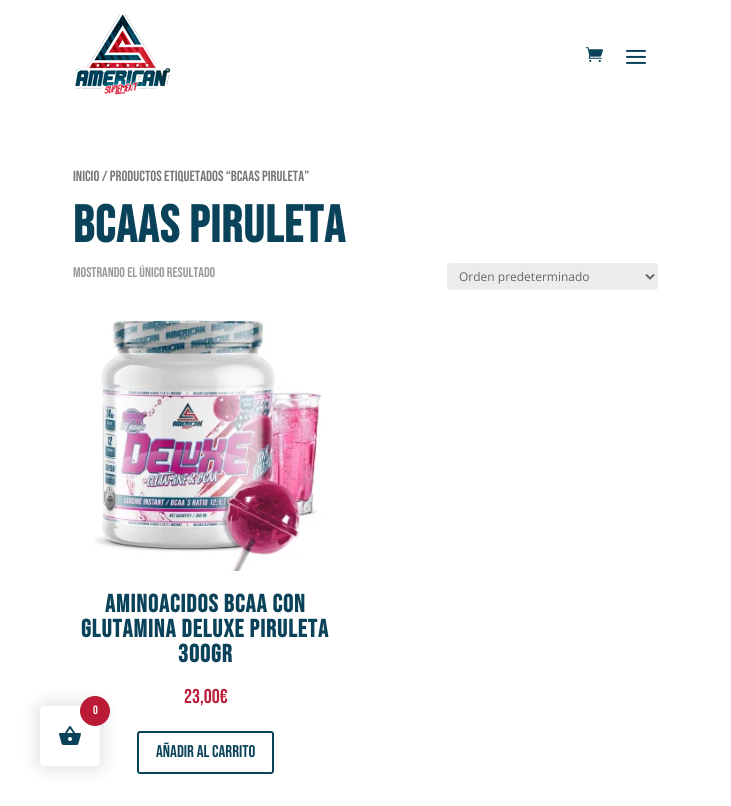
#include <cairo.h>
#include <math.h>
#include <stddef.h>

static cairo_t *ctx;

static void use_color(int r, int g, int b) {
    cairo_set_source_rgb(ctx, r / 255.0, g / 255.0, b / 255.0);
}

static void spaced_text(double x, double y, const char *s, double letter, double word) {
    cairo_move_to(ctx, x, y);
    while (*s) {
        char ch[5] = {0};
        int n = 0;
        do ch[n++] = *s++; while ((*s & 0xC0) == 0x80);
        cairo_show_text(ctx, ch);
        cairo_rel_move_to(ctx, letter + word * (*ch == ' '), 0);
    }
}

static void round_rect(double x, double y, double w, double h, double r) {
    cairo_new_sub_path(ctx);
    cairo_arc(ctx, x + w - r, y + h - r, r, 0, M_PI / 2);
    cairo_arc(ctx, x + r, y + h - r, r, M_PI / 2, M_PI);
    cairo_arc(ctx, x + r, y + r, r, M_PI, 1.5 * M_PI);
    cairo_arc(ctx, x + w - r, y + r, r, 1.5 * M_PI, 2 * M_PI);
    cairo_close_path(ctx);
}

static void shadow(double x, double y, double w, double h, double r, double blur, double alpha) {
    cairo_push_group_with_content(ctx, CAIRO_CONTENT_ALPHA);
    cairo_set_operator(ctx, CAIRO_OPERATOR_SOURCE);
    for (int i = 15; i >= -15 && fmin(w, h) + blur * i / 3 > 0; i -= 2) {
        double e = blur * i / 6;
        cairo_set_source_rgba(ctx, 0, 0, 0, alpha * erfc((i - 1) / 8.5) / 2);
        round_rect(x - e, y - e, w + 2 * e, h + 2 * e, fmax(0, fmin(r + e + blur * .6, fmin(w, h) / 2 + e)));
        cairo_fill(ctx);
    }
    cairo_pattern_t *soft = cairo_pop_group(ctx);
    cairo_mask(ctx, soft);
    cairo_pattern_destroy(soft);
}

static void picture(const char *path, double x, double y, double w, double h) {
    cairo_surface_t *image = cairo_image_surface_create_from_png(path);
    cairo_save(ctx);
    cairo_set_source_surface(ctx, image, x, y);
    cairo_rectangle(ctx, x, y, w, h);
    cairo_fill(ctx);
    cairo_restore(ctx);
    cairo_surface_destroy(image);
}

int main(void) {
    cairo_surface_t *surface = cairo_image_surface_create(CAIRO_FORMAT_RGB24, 731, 806);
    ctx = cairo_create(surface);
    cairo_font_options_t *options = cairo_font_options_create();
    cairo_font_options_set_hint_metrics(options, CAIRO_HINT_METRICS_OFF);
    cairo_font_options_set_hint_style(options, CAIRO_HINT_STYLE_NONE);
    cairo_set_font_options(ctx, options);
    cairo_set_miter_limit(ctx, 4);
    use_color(255, 255, 255);
    cairo_paint(ctx);
    picture("img1.png", 75, 14, 96, 81);
    picture("img2.png", 586, 47, 17, 15);
    picture("img3.png", 626, 49, 20, 15);
    cairo_select_font_face(ctx, "Bebas Neue", CAIRO_FONT_SLANT_NORMAL, CAIRO_FONT_WEIGHT_NORMAL);
    cairo_set_font_size(ctx, 14.75);
    use_color(118, 118, 118);
    cairo_move_to(ctx, 73, 181);
    cairo_show_text(ctx, "Inicio / Productos etiquetados “bcaas piruleta”");
    cairo_select_font_face(ctx, "Bebas Neue", CAIRO_FONT_SLANT_NORMAL, CAIRO_FONT_WEIGHT_BOLD);
    cairo_set_font_size(ctx, 52);
    use_color(9, 66, 89);
    spaced_text(73, 242, "bcaas piruleta", 1, 0);
    cairo_select_font_face(ctx, "Bebas Neue", CAIRO_FONT_SLANT_NORMAL, CAIRO_FONT_WEIGHT_NORMAL);
    cairo_set_font_size(ctx, 14);
    use_color(153, 153, 153);
    cairo_move_to(ctx, 73, 277);
    cairo_show_text(ctx, "Mostrando el único resultado");
    use_color(236, 236, 236);
    round_rect(447, 263, 211, 27, 3);
    cairo_fill(ctx);
    cairo_new_path(ctx);
    cairo_move_to(ctx, 646, 274.5);
    cairo_line_to(ctx, 650, 278.5);
    cairo_line_to(ctx, 654, 274.5);
    use_color(102, 102, 102);
    cairo_stroke(ctx);
    cairo_select_font_face(ctx, "Open Sans", CAIRO_FONT_SLANT_NORMAL, CAIRO_FONT_WEIGHT_NORMAL);
    cairo_set_font_size(ctx, 12);
    cairo_move_to(ctx, 459, 281);
    cairo_show_text(ctx, "Orden predeterminado");
    picture("img4.png", 94, 319, 230, 252);
    cairo_select_font_face(ctx, "Bebas Neue", CAIRO_FONT_SLANT_NORMAL, CAIRO_FONT_WEIGHT_BOLD);
    cairo_set_font_size(ctx, 25);
    use_color(9, 66, 89);
    spaced_text(105, 612, "AMINOACIDOS BCAA con", 1, 0);
    spaced_text(81, 637, "Glutamina Deluxe Piruleta", 1, 0);
    spaced_text(178, 662, "300gr", 1, 0);
    cairo_select_font_face(ctx, "Bebas Neue", CAIRO_FONT_SLANT_NORMAL, CAIRO_FONT_WEIGHT_NORMAL);
    cairo_set_font_size(ctx, 20);
    use_color(188, 27, 54);
    cairo_move_to(ctx, 184, 703);
    cairo_show_text(ctx, "23,00€");
    round_rect(138, 732, 135, 41, 2);
    use_color(9, 66, 89);
    cairo_stroke(ctx);
    cairo_set_font_size(ctx, 17);
    cairo_move_to(ctx, 156, 757);
    cairo_show_text(ctx, "Añadir al carrito");
    use_color(0, 0, 0);
    shadow(40, 706, 60, 60, 4, 10, 0.15);
    use_color(255, 255, 255);
    round_rect(40, 706, 60, 60, 4);
    cairo_fill(ctx);
    use_color(188, 27, 54);
    cairo_arc(ctx, 95, 711, 15, 0, 2 * M_PI);
    cairo_fill(ctx);
    cairo_set_font_size(ctx, 12);
    use_color(255, 255, 255);
    cairo_move_to(ctx, 93, 714);
    cairo_show_text(ctx, "0");
    picture("img5.png", 59, 726, 22, 19);
    cairo_surface_write_to_png(surface, "result.png");
    cairo_font_options_destroy(options);
    cairo_destroy(ctx);
    cairo_surface_destroy(surface);
    return 0;
}
